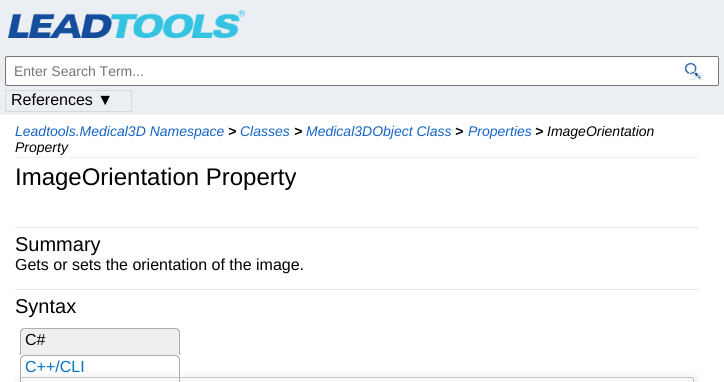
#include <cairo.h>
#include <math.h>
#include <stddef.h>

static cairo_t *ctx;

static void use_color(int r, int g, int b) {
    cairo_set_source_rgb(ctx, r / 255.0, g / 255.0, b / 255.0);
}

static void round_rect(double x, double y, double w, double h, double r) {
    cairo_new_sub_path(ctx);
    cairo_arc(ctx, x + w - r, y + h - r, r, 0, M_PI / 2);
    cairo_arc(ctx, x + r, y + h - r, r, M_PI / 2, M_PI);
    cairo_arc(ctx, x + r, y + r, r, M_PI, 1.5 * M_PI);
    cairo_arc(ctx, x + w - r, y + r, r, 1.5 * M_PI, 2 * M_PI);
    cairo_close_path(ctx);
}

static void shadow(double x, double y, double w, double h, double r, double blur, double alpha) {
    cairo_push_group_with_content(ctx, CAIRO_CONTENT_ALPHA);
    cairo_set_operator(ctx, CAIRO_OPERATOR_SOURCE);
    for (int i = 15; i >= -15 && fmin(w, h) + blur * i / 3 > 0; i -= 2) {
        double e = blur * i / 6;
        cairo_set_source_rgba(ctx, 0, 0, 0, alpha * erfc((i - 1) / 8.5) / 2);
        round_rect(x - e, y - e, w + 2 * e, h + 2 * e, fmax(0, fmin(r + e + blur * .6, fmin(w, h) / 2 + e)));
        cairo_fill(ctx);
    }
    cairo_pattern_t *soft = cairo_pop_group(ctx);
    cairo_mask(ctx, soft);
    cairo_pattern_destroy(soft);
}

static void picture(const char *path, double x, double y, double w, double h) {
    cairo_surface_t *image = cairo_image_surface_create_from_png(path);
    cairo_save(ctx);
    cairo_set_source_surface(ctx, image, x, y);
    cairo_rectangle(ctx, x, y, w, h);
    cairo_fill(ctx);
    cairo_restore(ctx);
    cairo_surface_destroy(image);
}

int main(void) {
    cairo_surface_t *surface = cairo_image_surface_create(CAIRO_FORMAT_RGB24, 724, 382);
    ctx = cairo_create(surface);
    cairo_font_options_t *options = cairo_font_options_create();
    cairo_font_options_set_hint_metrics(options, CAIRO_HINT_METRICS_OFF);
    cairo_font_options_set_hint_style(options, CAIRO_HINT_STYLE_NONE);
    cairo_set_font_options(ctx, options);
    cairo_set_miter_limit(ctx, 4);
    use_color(255, 255, 255);
    cairo_paint(ctx);
    use_color(235, 238, 243);
    cairo_rectangle(ctx, 0, 0, 724, 115);
    cairo_fill(ctx);
    picture("img1.png", 8, 10, 237, 28);
    use_color(255, 255, 255);
    round_rect(5.5, 56.5, 713, 29, 1.5);
    cairo_fill_preserve(ctx);
    use_color(118, 118, 118);
    cairo_set_line_width(ctx, 1);
    cairo_stroke(ctx);
    cairo_select_font_face(ctx, "Liberation Sans", CAIRO_FONT_SLANT_NORMAL, CAIRO_FONT_WEIGHT_NORMAL);
    cairo_set_font_size(ctx, 14);
    use_color(117, 117, 117);
    cairo_move_to(ctx, 14, 76);
    cairo_show_text(ctx, "Enter Search Term...");
    picture("img2.png", 684, 62, 17, 17);
    cairo_set_font_size(ctx, 13);
    use_color(217, 226, 237);
    cairo_move_to(ctx, 688, 80);
    cairo_show_text(ctx, "Se");
    cairo_rectangle(ctx, 5.5, 90.5, 126, 21);
    use_color(214, 216, 220);
    cairo_stroke(ctx);
    cairo_set_font_size(ctx, 16);
    use_color(0, 0, 0);
    cairo_move_to(ctx, 11, 105);
    cairo_show_text(ctx, "References ▼");
    use_color(241, 241, 241);
    cairo_rectangle(ctx, 15, 157, 684, 1);
    cairo_fill(ctx);
    cairo_select_font_face(ctx, "Liberation Sans", CAIRO_FONT_SLANT_ITALIC, CAIRO_FONT_WEIGHT_NORMAL);
    cairo_set_font_size(ctx, 14);
    use_color(19, 100, 196);
    cairo_move_to(ctx, 15, 136);
    cairo_show_text(ctx, "Leadtools.Medical3D Namespace");
    cairo_select_font_face(ctx, "Liberation Sans", CAIRO_FONT_SLANT_ITALIC, CAIRO_FONT_WEIGHT_BOLD);
    use_color(0, 0, 0);
    cairo_move_to(ctx, 228, 136);
    cairo_show_text(ctx, ">");
    cairo_select_font_face(ctx, "Liberation Sans", CAIRO_FONT_SLANT_ITALIC, CAIRO_FONT_WEIGHT_NORMAL);
    use_color(19, 100, 196);
    cairo_move_to(ctx, 240, 136);
    cairo_show_text(ctx, "Classes");
    cairo_select_font_face(ctx, "Liberation Sans", CAIRO_FONT_SLANT_ITALIC, CAIRO_FONT_WEIGHT_BOLD);
    use_color(0, 0, 0);
    cairo_move_to(ctx, 294, 136);
    cairo_show_text(ctx, ">");
    cairo_select_font_face(ctx, "Liberation Sans", CAIRO_FONT_SLANT_ITALIC, CAIRO_FONT_WEIGHT_NORMAL);
    use_color(19, 100, 196);
    cairo_move_to(ctx, 306, 136);
    cairo_show_text(ctx, "Medical3DObject Class");
    cairo_select_font_face(ctx, "Liberation Sans", CAIRO_FONT_SLANT_ITALIC, CAIRO_FONT_WEIGHT_BOLD);
    use_color(0, 0, 0);
    cairo_move_to(ctx, 455, 136);
    cairo_show_text(ctx, ">");
    cairo_select_font_face(ctx, "Liberation Sans", CAIRO_FONT_SLANT_ITALIC, CAIRO_FONT_WEIGHT_NORMAL);
    use_color(19, 100, 196);
    cairo_move_to(ctx, 468, 136);
    cairo_show_text(ctx, "Properties");
    cairo_select_font_face(ctx, "Liberation Sans", CAIRO_FONT_SLANT_ITALIC, CAIRO_FONT_WEIGHT_BOLD);
    use_color(0, 0, 0);
    cairo_move_to(ctx, 535, 136);
    cairo_show_text(ctx, ">");
    cairo_select_font_face(ctx, "Liberation Sans", CAIRO_FONT_SLANT_ITALIC, CAIRO_FONT_WEIGHT_NORMAL);
    cairo_move_to(ctx, 547, 136);
    cairo_show_text(ctx, "ImageOrientation");
    cairo_move_to(ctx, 15, 152);
    cairo_show_text(ctx, "Property");
    cairo_select_font_face(ctx, "Liberation Sans", CAIRO_FONT_SLANT_NORMAL, CAIRO_FONT_WEIGHT_NORMAL);
    cairo_set_font_size(ctx, 24);
    cairo_move_to(ctx, 15, 185);
    cairo_show_text(ctx, "ImageOrientation Property");
    use_color(230, 230, 230);
    cairo_rectangle(ctx, 15, 227, 684, 1);
    cairo_fill(ctx);
    cairo_set_font_size(ctx, 20);
    use_color(0, 0, 0);
    cairo_move_to(ctx, 15, 251);
    cairo_show_text(ctx, "Summary");
    cairo_set_font_size(ctx, 16);
    cairo_move_to(ctx, 15, 270);
    cairo_show_text(ctx, "Gets or sets the orientation of the image.");
    use_color(230, 230, 230);
    cairo_rectangle(ctx, 15, 289, 684, 1);
    cairo_fill(ctx);
    cairo_set_font_size(ctx, 20);
    use_color(0, 0, 0);
    cairo_move_to(ctx, 15, 313);
    cairo_show_text(ctx, "Syntax");
    use_color(239, 239, 239);
    cairo_new_path(ctx);
    cairo_move_to(ctx, 25, 329);
    cairo_line_to(ctx, 175, 329);
    cairo_curve_to(ctx, 177, 329, 179, 331, 179, 333);
    cairo_line_to(ctx, 179, 355);
    cairo_line_to(ctx, 21, 355);
    cairo_line_to(ctx, 21, 333);
    cairo_curve_to(ctx, 21, 331, 23, 329, 25, 329);
    cairo_close_path(ctx);
    cairo_fill(ctx);
    use_color(176, 170, 170);
    cairo_set_fill_rule(ctx, CAIRO_FILL_RULE_EVEN_ODD);
    cairo_new_path(ctx);
    cairo_move_to(ctx, 25, 328);
    cairo_line_to(ctx, 175, 328);
    cairo_curve_to(ctx, 178, 328, 180, 330, 180, 333);
    cairo_line_to(ctx, 180, 355);
    cairo_line_to(ctx, 20, 355);
    cairo_line_to(ctx, 20, 333);
    cairo_curve_to(ctx, 20, 330, 22, 328, 25, 328);
    cairo_close_path(ctx);
    cairo_move_to(ctx, 25, 329);
    cairo_line_to(ctx, 175, 329);
    cairo_curve_to(ctx, 177, 329, 179, 331, 179, 333);
    cairo_line_to(ctx, 179, 355);
    cairo_line_to(ctx, 21, 355);
    cairo_line_to(ctx, 21, 333);
    cairo_curve_to(ctx, 21, 331, 23, 329, 25, 329);
    cairo_close_path(ctx);
    cairo_fill(ctx);
    cairo_set_font_size(ctx, 16);
    use_color(0, 0, 0);
    cairo_move_to(ctx, 25, 345);
    cairo_show_text(ctx, "C#");
    cairo_save(ctx);
    cairo_set_fill_rule(ctx, CAIRO_FILL_RULE_WINDING);
    cairo_rectangle(ctx, 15, 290, 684, 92);
    cairo_clip(ctx);
    cairo_set_fill_rule(ctx, CAIRO_FILL_RULE_EVEN_ODD);
    cairo_new_path(ctx);
    cairo_move_to(ctx, 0, 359);
    cairo_line_to(ctx, 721, 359);
    cairo_line_to(ctx, 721, 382);
    cairo_line_to(ctx, 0, 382);
    cairo_close_path(ctx);
    cairo_move_to(ctx, 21.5, 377);
    cairo_line_to(ctx, 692.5, 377);
    cairo_curve_to(ctx, 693.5, 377, 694, 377.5, 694, 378.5);
    cairo_line_to(ctx, 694, 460.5);
    cairo_curve_to(ctx, 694, 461.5, 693.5, 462, 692.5, 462);
    cairo_line_to(ctx, 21.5, 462);
    cairo_curve_to(ctx, 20.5, 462, 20, 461.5, 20, 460.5);
    cairo_line_to(ctx, 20, 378.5);
    cairo_curve_to(ctx, 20, 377.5, 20.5, 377, 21.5, 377);
    cairo_close_path(ctx);
    cairo_clip(ctx);
    use_color(0, 0, 0);
    shadow(20, 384, 676, 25, 2.5, 8, 0.2);
    cairo_restore(ctx);
    cairo_set_source_rgba(ctx, 0.933, 0.937, 0.941, 0.4);
    cairo_new_path(ctx);
    cairo_move_to(ctx, 21.5, 377);
    cairo_line_to(ctx, 692.5, 377);
    cairo_curve_to(ctx, 693.5, 377, 694, 377.5, 694, 378.5);
    cairo_line_to(ctx, 694, 382);
    cairo_line_to(ctx, 20, 382);
    cairo_line_to(ctx, 20, 378.5);
    cairo_curve_to(ctx, 20, 377.5, 20.5, 377, 21.5, 377);
    cairo_close_path(ctx);
    cairo_fill(ctx);
    round_rect(20.5, 377.5, 673, 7, 1);
    use_color(196, 196, 197);
    cairo_stroke(ctx);
    use_color(176, 170, 170);
    cairo_new_path(ctx);
    cairo_move_to(ctx, 25, 355);
    cairo_line_to(ctx, 175, 355);
    cairo_curve_to(ctx, 178, 355, 180, 357, 180, 360);
    cairo_line_to(ctx, 180, 382);
    cairo_line_to(ctx, 20, 382);
    cairo_line_to(ctx, 20, 360);
    cairo_curve_to(ctx, 20, 357, 22, 355, 25, 355);
    cairo_close_path(ctx);
    cairo_move_to(ctx, 25, 356);
    cairo_line_to(ctx, 175, 356);
    cairo_curve_to(ctx, 177, 356, 179, 358, 179, 360);
    cairo_line_to(ctx, 179, 382);
    cairo_line_to(ctx, 21, 382);
    cairo_line_to(ctx, 21, 360);
    cairo_curve_to(ctx, 21, 358, 23, 356, 25, 356);
    cairo_close_path(ctx);
    cairo_fill(ctx);
    use_color(0, 114, 198);
    cairo_move_to(ctx, 25, 372);
    cairo_show_text(ctx, "C++/CLI");
    cairo_surface_write_to_png(surface, "result.png");
    cairo_font_options_destroy(options);
    cairo_destroy(ctx);
    cairo_surface_destroy(surface);
    return 0;
}
